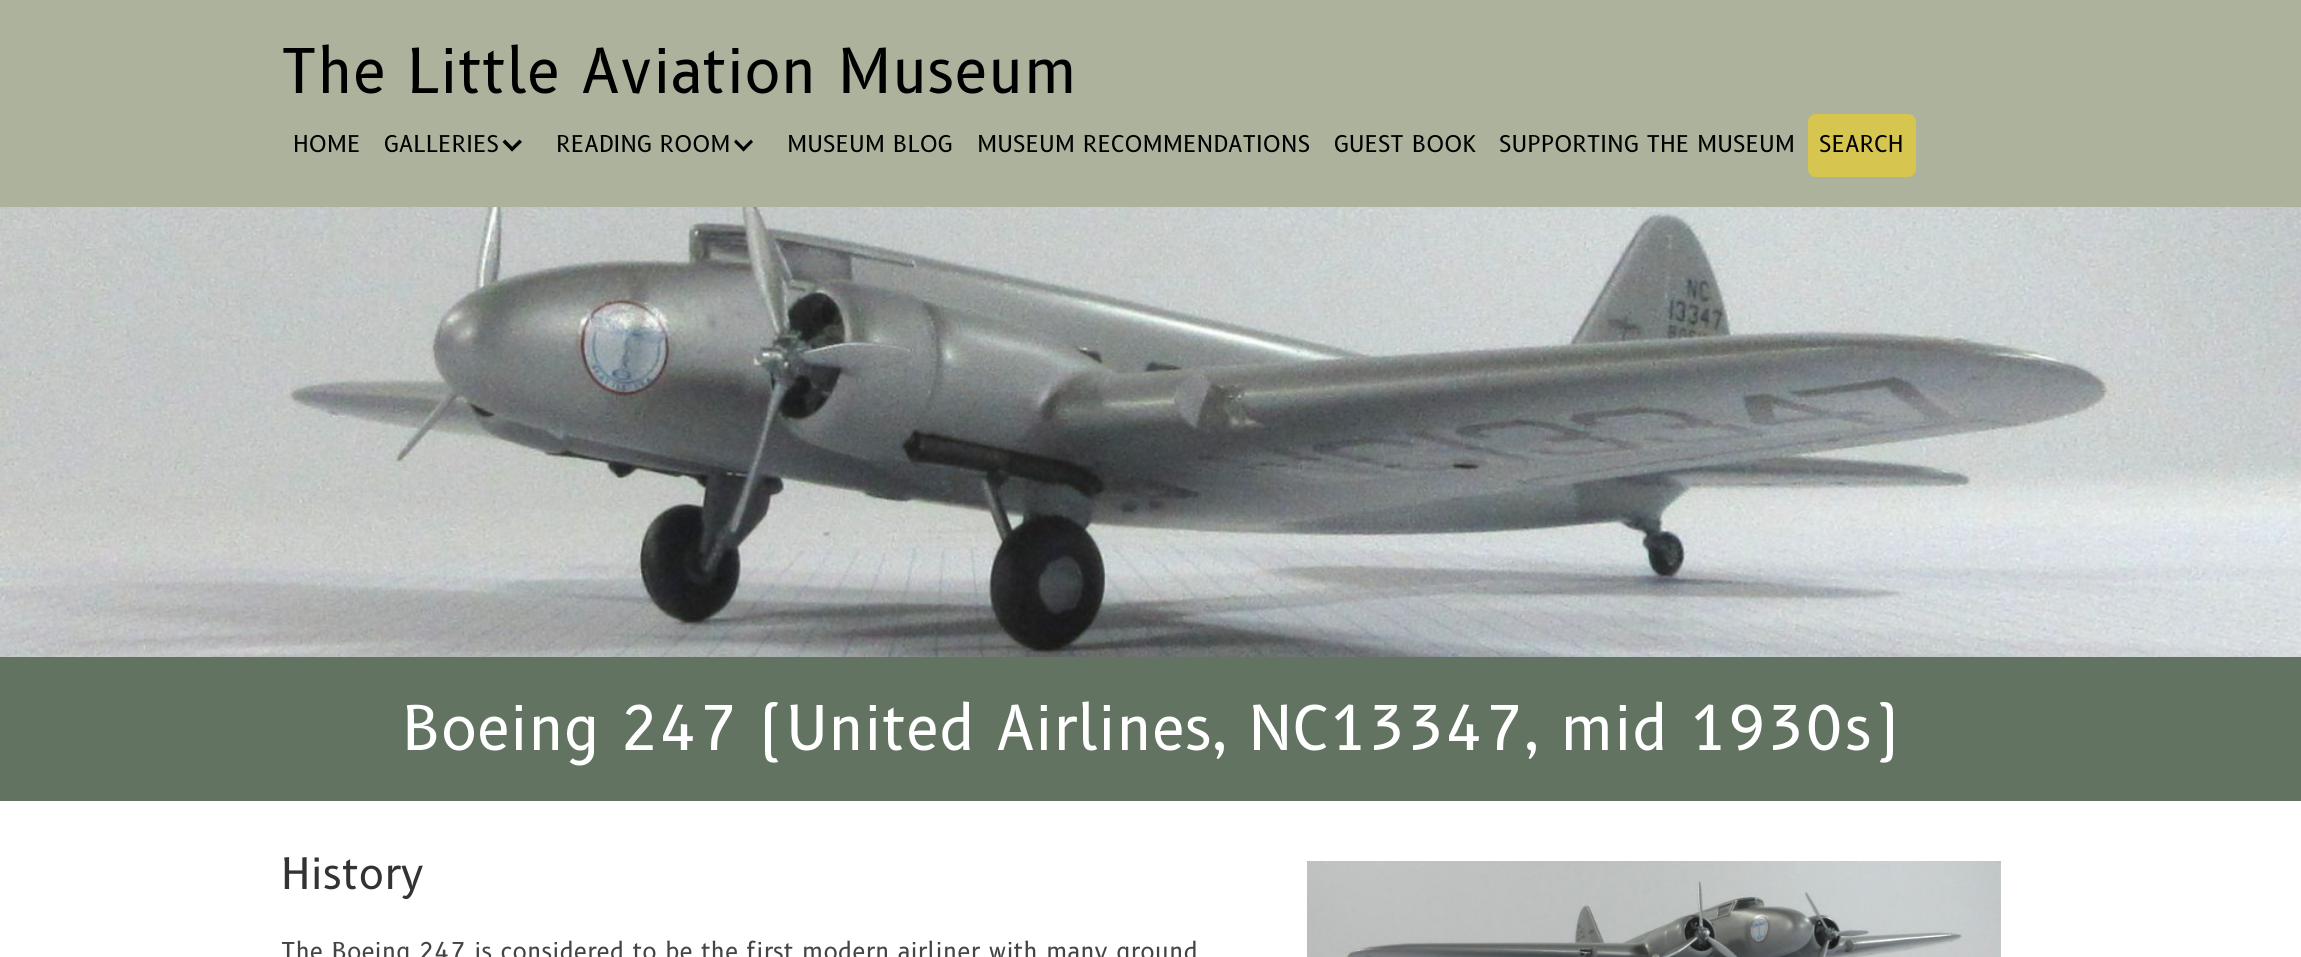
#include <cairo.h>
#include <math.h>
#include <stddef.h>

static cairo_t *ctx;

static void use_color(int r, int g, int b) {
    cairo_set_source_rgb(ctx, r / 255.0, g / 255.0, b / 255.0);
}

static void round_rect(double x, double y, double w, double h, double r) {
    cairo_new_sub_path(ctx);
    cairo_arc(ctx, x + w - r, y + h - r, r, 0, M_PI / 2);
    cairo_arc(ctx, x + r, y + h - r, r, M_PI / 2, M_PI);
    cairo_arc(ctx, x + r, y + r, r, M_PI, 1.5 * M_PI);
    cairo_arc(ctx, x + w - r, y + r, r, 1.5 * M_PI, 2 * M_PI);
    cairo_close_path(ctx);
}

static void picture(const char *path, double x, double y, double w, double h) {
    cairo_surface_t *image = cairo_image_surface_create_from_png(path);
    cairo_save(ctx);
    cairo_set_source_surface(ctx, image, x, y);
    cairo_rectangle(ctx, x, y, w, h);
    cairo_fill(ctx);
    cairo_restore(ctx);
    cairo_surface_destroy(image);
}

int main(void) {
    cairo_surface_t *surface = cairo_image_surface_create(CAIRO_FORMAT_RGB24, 2301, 957);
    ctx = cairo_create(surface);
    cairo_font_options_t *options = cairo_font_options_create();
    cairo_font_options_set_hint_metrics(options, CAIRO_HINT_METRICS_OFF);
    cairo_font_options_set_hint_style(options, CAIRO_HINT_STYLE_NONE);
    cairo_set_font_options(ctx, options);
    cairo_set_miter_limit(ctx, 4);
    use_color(255, 255, 255);
    cairo_paint(ctx);
    use_color(173, 178, 156);
    cairo_rectangle(ctx, 0, 0, 2301, 207);
    cairo_fill(ctx);
    cairo_select_font_face(ctx, "B612", CAIRO_FONT_SLANT_NORMAL, CAIRO_FONT_WEIGHT_NORMAL);
    cairo_set_font_size(ctx, 60);
    use_color(0, 0, 0);
    cairo_move_to(ctx, 281, 93);
    cairo_show_text(ctx, "The Little Aviation Museum");
    cairo_set_font_size(ctx, 22.5);
    cairo_move_to(ctx, 293, 152);
    cairo_show_text(ctx, "HOME");
    cairo_move_to(ctx, 384, 152);
    cairo_show_text(ctx, "GALLERIES");
    cairo_new_path(ctx);
    cairo_move_to(ctx, 519.5, 139.5);
    cairo_line_to(ctx, 522, 142);
    cairo_line_to(ctx, 512, 151.5);
    cairo_line_to(ctx, 510, 149);
    cairo_close_path(ctx);
    cairo_fill(ctx);
    cairo_new_path(ctx);
    cairo_move_to(ctx, 505, 139.5);
    cairo_line_to(ctx, 514.5, 149);
    cairo_line_to(ctx, 512, 151.5);
    cairo_line_to(ctx, 502.5, 142);
    cairo_close_path(ctx);
    cairo_fill(ctx);
    cairo_move_to(ctx, 556, 152);
    cairo_show_text(ctx, "READING ROOM");
    cairo_new_path(ctx);
    cairo_move_to(ctx, 751, 139.5);
    cairo_line_to(ctx, 753, 142);
    cairo_line_to(ctx, 743.5, 151.5);
    cairo_line_to(ctx, 741.5, 149);
    cairo_close_path(ctx);
    cairo_fill(ctx);
    cairo_new_path(ctx);
    cairo_move_to(ctx, 736, 139.5);
    cairo_line_to(ctx, 745.5, 149);
    cairo_line_to(ctx, 743.5, 151.5);
    cairo_line_to(ctx, 734, 142);
    cairo_close_path(ctx);
    cairo_fill(ctx);
    cairo_move_to(ctx, 787, 152);
    cairo_show_text(ctx, "MUSEUM BLOG");
    cairo_move_to(ctx, 977, 152);
    cairo_show_text(ctx, "MUSEUM RECOMMENDATIONS");
    cairo_move_to(ctx, 1334, 152);
    cairo_show_text(ctx, "GUEST BOOK");
    cairo_move_to(ctx, 1499, 152);
    cairo_show_text(ctx, "SUPPORTING THE MUSEUM");
    use_color(214, 197, 78);
    round_rect(1808, 114, 108, 63, 8);
    cairo_fill(ctx);
    use_color(0, 0, 0);
    cairo_move_to(ctx, 1819, 152);
    cairo_show_text(ctx, "SEARCH");
    picture("img1.png", 0, 207, 2301, 450);
    use_color(98, 116, 97);
    cairo_rectangle(ctx, 0, 657, 2301, 144);
    cairo_fill(ctx);
    cairo_set_font_size(ctx, 60);
    use_color(255, 255, 255);
    cairo_move_to(ctx, 402, 750);
    cairo_show_text(ctx, "Boeing 247 (United Airlines, NC13347, mid 1930s)");
    cairo_set_font_size(ctx, 42);
    use_color(51, 51, 51);
    cairo_move_to(ctx, 281, 889);
    cairo_show_text(ctx, "History");
    cairo_set_font_size(ctx, 24);
    use_color(68, 68, 68);
    cairo_move_to(ctx, 281, 960);
    cairo_show_text(ctx, "The Boeing 247 is considered to be the first modern airliner with many ground");
    picture("img2.png", 1307, 861, 694, 96);
    cairo_surface_write_to_png(surface, "result.png");
    cairo_font_options_destroy(options);
    cairo_destroy(ctx);
    cairo_surface_destroy(surface);
    return 0;
}
